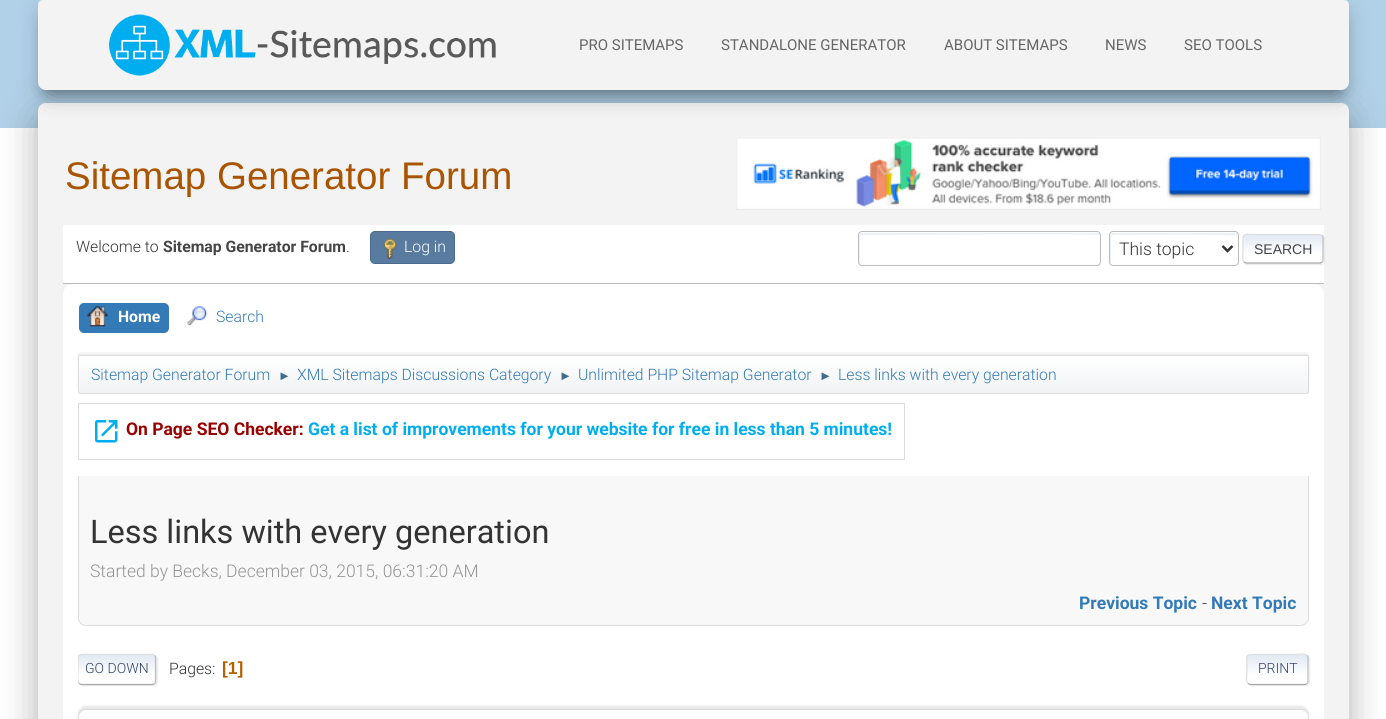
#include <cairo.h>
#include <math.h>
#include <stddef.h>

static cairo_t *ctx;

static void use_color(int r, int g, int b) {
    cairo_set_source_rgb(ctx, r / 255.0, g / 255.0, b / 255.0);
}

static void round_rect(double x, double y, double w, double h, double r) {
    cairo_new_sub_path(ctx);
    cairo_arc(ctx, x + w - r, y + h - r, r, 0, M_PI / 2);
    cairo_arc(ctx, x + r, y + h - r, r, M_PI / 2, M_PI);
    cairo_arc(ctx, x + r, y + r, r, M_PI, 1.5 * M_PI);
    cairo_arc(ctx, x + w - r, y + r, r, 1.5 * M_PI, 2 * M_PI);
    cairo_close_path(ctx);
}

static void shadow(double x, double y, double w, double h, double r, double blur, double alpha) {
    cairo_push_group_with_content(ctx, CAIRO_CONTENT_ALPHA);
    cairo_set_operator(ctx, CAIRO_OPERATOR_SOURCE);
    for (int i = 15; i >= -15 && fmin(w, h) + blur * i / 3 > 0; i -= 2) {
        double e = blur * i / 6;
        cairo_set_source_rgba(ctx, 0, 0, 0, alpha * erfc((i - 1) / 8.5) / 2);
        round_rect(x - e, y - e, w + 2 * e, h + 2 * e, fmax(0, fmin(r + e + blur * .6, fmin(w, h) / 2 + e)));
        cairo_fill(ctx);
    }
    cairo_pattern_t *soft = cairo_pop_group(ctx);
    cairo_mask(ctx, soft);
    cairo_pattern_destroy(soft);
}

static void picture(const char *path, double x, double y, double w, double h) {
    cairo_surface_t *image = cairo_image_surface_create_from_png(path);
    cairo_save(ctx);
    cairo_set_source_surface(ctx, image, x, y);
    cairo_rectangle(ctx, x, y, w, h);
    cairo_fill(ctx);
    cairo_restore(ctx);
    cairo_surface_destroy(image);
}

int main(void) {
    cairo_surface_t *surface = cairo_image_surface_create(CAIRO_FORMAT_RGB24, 1386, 719);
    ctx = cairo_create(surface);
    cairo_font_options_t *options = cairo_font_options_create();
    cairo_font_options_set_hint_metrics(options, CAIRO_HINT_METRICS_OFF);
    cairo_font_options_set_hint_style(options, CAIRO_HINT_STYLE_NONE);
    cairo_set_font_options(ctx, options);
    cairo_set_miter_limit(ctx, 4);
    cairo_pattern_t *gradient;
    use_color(255, 255, 255);
    cairo_paint(ctx);
    use_color(177, 209, 232);
    cairo_rectangle(ctx, 0, 0, 1386, 128);
    cairo_fill(ctx);
    use_color(0, 0, 0);
    shadow(44, 119, 1299, 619, 1, 6, 0.2);
    shadow(31, 104, 1324, 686, 14, 19, 0.12);
    shadow(35, 120, 1316, 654, 10, 15, 0.14);
    use_color(243, 243, 243);
    round_rect(38, 103, 1311, 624, 8);
    cairo_fill(ctx);
    use_color(0, 0, 0);
    shadow(44, 16, 1299, 78, 1, 6, 0.2);
    shadow(38, 4, 1311, 90, 8, 12.5, 0.12);
    shadow(53, 28, 1281, 60, 0, 12.5, 0.42);
    use_color(243, 243, 243);
    cairo_new_path(ctx);
    cairo_move_to(ctx, 43, 0);
    cairo_line_to(ctx, 1344, 0);
    cairo_curve_to(ctx, 1347, 0, 1349, 2, 1349, 5);
    cairo_line_to(ctx, 1349, 82);
    cairo_curve_to(ctx, 1349, 86.5, 1345.5, 90, 1341, 90);
    cairo_line_to(ctx, 46, 90);
    cairo_curve_to(ctx, 41.5, 90, 38, 86.5, 38, 82);
    cairo_line_to(ctx, 38, 5);
    cairo_curve_to(ctx, 38, 2, 40, 0, 43, 0);
    cairo_close_path(ctx);
    cairo_fill(ctx);
    picture("img1.png", 108, 14, 388, 62);
    cairo_select_font_face(ctx, "Roboto", CAIRO_FONT_SLANT_NORMAL, CAIRO_FONT_WEIGHT_NORMAL);
    cairo_set_font_size(ctx, 15);
    use_color(102, 102, 102);
    cairo_move_to(ctx, 579, 50);
    cairo_show_text(ctx, "PRO SITEMAPS");
    cairo_move_to(ctx, 721, 50);
    cairo_show_text(ctx, "STANDALONE GENERATOR");
    cairo_move_to(ctx, 944, 50);
    cairo_show_text(ctx, "ABOUT SITEMAPS");
    cairo_move_to(ctx, 1105, 50);
    cairo_show_text(ctx, "NEWS");
    cairo_move_to(ctx, 1184, 50);
    cairo_show_text(ctx, "SEO TOOLS");
    cairo_select_font_face(ctx, "Liberation Sans", CAIRO_FONT_SLANT_NORMAL, CAIRO_FONT_WEIGHT_NORMAL);
    cairo_set_font_size(ctx, 38.5);
    use_color(168, 84, 0);
    cairo_move_to(ctx, 65, 189);
    cairo_show_text(ctx, "Sitemap Generator Forum");
    picture("img2.png", 736, 137, 585, 73);
    use_color(255, 255, 255);
    cairo_rectangle(ctx, 63, 225, 1261, 58);
    cairo_fill(ctx);
    use_color(187, 187, 187);
    cairo_rectangle(ctx, 63, 283, 1261, 1);
    cairo_fill(ctx);
    cairo_select_font_face(ctx, "Roboto Light", CAIRO_FONT_SLANT_NORMAL, CAIRO_FONT_WEIGHT_NORMAL);
    cairo_set_font_size(ctx, 15.75);
    use_color(51, 51, 51);
    cairo_move_to(ctx, 76, 252);
    cairo_show_text(ctx, "Welcome to");
    cairo_select_font_face(ctx, "Roboto", CAIRO_FONT_SLANT_NORMAL, CAIRO_FONT_WEIGHT_BOLD);
    use_color(68, 68, 68);
    cairo_move_to(ctx, 163, 252);
    cairo_show_text(ctx, "Sitemap Generator Forum");
    cairo_select_font_face(ctx, "Roboto Light", CAIRO_FONT_SLANT_NORMAL, CAIRO_FONT_WEIGHT_NORMAL);
    use_color(51, 51, 51);
    cairo_move_to(ctx, 346, 252);
    cairo_show_text(ctx, ".");
    use_color(89, 123, 159);
    round_rect(370.5, 231.5, 84, 32, 4.5);
    cairo_fill_preserve(ctx);
    use_color(74, 107, 140);
    cairo_set_line_width(ctx, 1);
    cairo_stroke(ctx);
    picture("img3.png", 383, 238, 14, 21);
    use_color(255, 255, 255);
    cairo_move_to(ctx, 404, 252);
    cairo_show_text(ctx, "Log in");
    use_color(236, 241, 248);
    cairo_new_path(ctx);
    cairo_move_to(ctx, 862, 235);
    cairo_curve_to(ctx, 883, 235, 1099, 234, 1100, 235);
    cairo_curve_to(ctx, 1100, 234, 1099, 233, 1098, 233);
    cairo_line_to(ctx, 862, 233);
    cairo_curve_to(ctx, 860, 233, 859, 234, 859, 236);
    cairo_line_to(ctx, 859, 262);
    cairo_curve_to(ctx, 859, 263, 859, 264, 860, 265);
    cairo_line_to(ctx, 860, 238);
    cairo_curve_to(ctx, 860, 236, 861, 235, 862, 235);
    cairo_close_path(ctx);
    cairo_fill(ctx);
    round_rect(858.5, 231.5, 242, 34, 3.5);
    use_color(187, 187, 187);
    cairo_stroke(ctx);
    use_color(236, 241, 248);
    cairo_new_path(ctx);
    cairo_move_to(ctx, 1114, 235);
    cairo_curve_to(ctx, 1126, 235, 1236, 234, 1238, 236);
    cairo_curve_to(ctx, 1238, 234, 1237, 233, 1236, 233);
    cairo_line_to(ctx, 1112, 233);
    cairo_curve_to(ctx, 1111, 233, 1110, 234, 1110, 236);
    cairo_line_to(ctx, 1110, 262);
    cairo_curve_to(ctx, 1110, 263, 1110, 264, 1111, 265);
    cairo_line_to(ctx, 1111, 238);
    cairo_curve_to(ctx, 1111, 236, 1112, 235, 1114, 235);
    cairo_close_path(ctx);
    cairo_fill(ctx);
    round_rect(1109.5, 231.5, 129, 34, 3.5);
    use_color(187, 187, 187);
    cairo_stroke(ctx);
    cairo_new_path(ctx);
    cairo_move_to(ctx, 1222.5, 246);
    cairo_line_to(ctx, 1227.5, 251);
    cairo_line_to(ctx, 1232.5, 246);
    use_color(51, 51, 51);
    cairo_set_line_width(ctx, 2.5);
    cairo_stroke(ctx);
    cairo_set_font_size(ctx, 17.5);
    cairo_move_to(ctx, 1119, 255);
    cairo_show_text(ctx, "This topic");
    use_color(221, 221, 221);
    shadow(1244, 235, 81, 30, 4, 0.5, 0.57);
    use_color(255, 255, 255);
    round_rect(1243, 234, 81, 30, 4);
    cairo_fill(ctx);
    cairo_save(ctx);
    round_rect(1243, 234, 81, 30, 4);
    cairo_clip(ctx);
    gradient = cairo_pattern_create_linear(1283, 235, 1283, 263);
    cairo_pattern_add_color_stop_rgba(gradient, 0, 0.886, 0.914, 0.953, 1);
    cairo_pattern_add_color_stop_rgba(gradient, 0.7, 1, 1, 1, 1);
    cairo_set_source(ctx, gradient);
    cairo_pattern_destroy(gradient);
    cairo_rectangle(ctx, 1243, 235, 81, 28);
    cairo_fill(ctx);
    gradient = cairo_pattern_create_linear(1283, 263, 1283, 290);
    cairo_pattern_add_color_stop_rgba(gradient, 0, 0.886, 0.914, 0.953, 1);
    cairo_pattern_add_color_stop_rgba(gradient, 0.7, 1, 1, 1, 1);
    cairo_set_source(ctx, gradient);
    cairo_pattern_destroy(gradient);
    cairo_rectangle(ctx, 1243, 263, 81, 1);
    cairo_fill(ctx);
    cairo_restore(ctx);
    cairo_new_path(ctx);
    cairo_move_to(ctx, 1322, 235.5);
    cairo_curve_to(ctx, 1323, 236, 1323, 236.5, 1323, 237.5);
    cairo_line_to(ctx, 1323, 260);
    cairo_curve_to(ctx, 1323, 261, 1323, 261.5, 1322, 262);
    use_color(187, 187, 187);
    cairo_set_line_width(ctx, 1.2);
    cairo_stroke(ctx);
    cairo_new_path(ctx);
    cairo_move_to(ctx, 1322, 262);
    cairo_line_to(ctx, 1320.5, 263);
    cairo_line_to(ctx, 1246, 263);
    cairo_line_to(ctx, 1244, 262);
    use_color(170, 170, 170);
    cairo_stroke(ctx);
    cairo_new_path(ctx);
    cairo_move_to(ctx, 1244, 262);
    cairo_curve_to(ctx, 1242, 260, 1243, 251.5, 1243, 249);
    cairo_curve_to(ctx, 1243, 231.5, 1240.5, 234.5, 1258.5, 234.5);
    cairo_line_to(ctx, 1320, 234.5);
    cairo_line_to(ctx, 1322, 235.5);
    use_color(221, 221, 221);
    cairo_stroke(ctx);
    cairo_select_font_face(ctx, "Liberation Sans", CAIRO_FONT_SLANT_NORMAL, CAIRO_FONT_WEIGHT_NORMAL);
    cairo_set_font_size(ctx, 14);
    use_color(68, 68, 68);
    cairo_move_to(ctx, 1254, 254);
    cairo_show_text(ctx, "SEARCH");
    use_color(255, 255, 255);
    round_rect(63, 284, 1261, 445, 10);
    cairo_fill(ctx);
    use_color(51, 122, 183);
    round_rect(79, 303, 90, 30, 5);
    cairo_fill(ctx);
    picture("img4.png", 87, 306, 21, 21);
    cairo_select_font_face(ctx, "Roboto", CAIRO_FONT_SLANT_NORMAL, CAIRO_FONT_WEIGHT_BOLD);
    cairo_set_font_size(ctx, 15.75);
    use_color(255, 255, 255);
    cairo_move_to(ctx, 118, 322);
    cairo_show_text(ctx, "Home");
    picture("img5.png", 187, 306, 20, 20);
    cairo_select_font_face(ctx, "Roboto Light", CAIRO_FONT_SLANT_NORMAL, CAIRO_FONT_WEIGHT_NORMAL);
    use_color(51, 122, 183);
    cairo_move_to(ctx, 216, 322);
    cairo_show_text(ctx, "Search");
    use_color(0, 0, 0);
    shadow(78, 353, 1231, 38, 2.5, 1, 0.08);
    cairo_save(ctx);
    round_rect(78, 355, 1231, 39, 2.5);
    cairo_clip(ctx);
    gradient = cairo_pattern_create_linear(693, 356, 693, 393);
    cairo_pattern_add_color_stop_rgba(gradient, 0, 1, 1, 1, 1);
    cairo_pattern_add_color_stop_rgba(gradient, 0.95, 0.945, 0.953, 0.961, 1);
    cairo_set_source(ctx, gradient);
    cairo_pattern_destroy(gradient);
    cairo_rectangle(ctx, 78, 356, 1231, 37);
    cairo_fill(ctx);
    cairo_restore(ctx);
    round_rect(78.5, 355.5, 1230, 38, 2);
    use_color(221, 221, 221);
    cairo_set_line_width(ctx, 1);
    cairo_stroke(ctx);
    use_color(51, 122, 183);
    cairo_move_to(ctx, 91, 380);
    cairo_show_text(ctx, "Sitemap Generator Forum");
    cairo_select_font_face(ctx, "Liberation Sans", CAIRO_FONT_SLANT_NORMAL, CAIRO_FONT_WEIGHT_NORMAL);
    cairo_set_font_size(ctx, 13);
    use_color(63, 107, 140);
    cairo_move_to(ctx, 278, 380);
    cairo_show_text(ctx, "►");
    cairo_select_font_face(ctx, "Roboto Light", CAIRO_FONT_SLANT_NORMAL, CAIRO_FONT_WEIGHT_NORMAL);
    cairo_set_font_size(ctx, 15.75);
    use_color(51, 122, 183);
    cairo_move_to(ctx, 297, 380);
    cairo_show_text(ctx, "XML Sitemaps Discussions Category");
    cairo_select_font_face(ctx, "Liberation Sans", CAIRO_FONT_SLANT_NORMAL, CAIRO_FONT_WEIGHT_NORMAL);
    cairo_set_font_size(ctx, 13);
    use_color(63, 107, 140);
    cairo_move_to(ctx, 559, 380);
    cairo_show_text(ctx, "►");
    cairo_select_font_face(ctx, "Roboto Light", CAIRO_FONT_SLANT_NORMAL, CAIRO_FONT_WEIGHT_NORMAL);
    cairo_set_font_size(ctx, 15.75);
    use_color(51, 122, 183);
    cairo_move_to(ctx, 578, 380);
    cairo_show_text(ctx, "Unlimited PHP Sitemap Generator");
    cairo_select_font_face(ctx, "Liberation Sans", CAIRO_FONT_SLANT_NORMAL, CAIRO_FONT_WEIGHT_NORMAL);
    cairo_set_font_size(ctx, 13);
    use_color(63, 107, 140);
    cairo_move_to(ctx, 819, 380);
    cairo_show_text(ctx, "►");
    cairo_select_font_face(ctx, "Roboto Light", CAIRO_FONT_SLANT_NORMAL, CAIRO_FONT_WEIGHT_NORMAL);
    cairo_set_font_size(ctx, 15.75);
    use_color(51, 122, 183);
    cairo_move_to(ctx, 838, 380);
    cairo_show_text(ctx, "Less links with every generation");
    cairo_rectangle(ctx, 78.5, 403.5, 826, 56);
    use_color(221, 221, 221);
    cairo_stroke(ctx);
    picture("img6.png", 95, 420, 23, 23);
    cairo_select_font_face(ctx, "Roboto", CAIRO_FONT_SLANT_NORMAL, CAIRO_FONT_WEIGHT_BOLD);
    cairo_set_font_size(ctx, 17.5);
    use_color(153, 0, 0);
    cairo_move_to(ctx, 126, 435);
    cairo_show_text(ctx, "On Page SEO Checker:");
    use_color(0, 174, 239);
    cairo_move_to(ctx, 308, 435);
    cairo_show_text(ctx, "Get a list of improvements for your website for free in less than 5 minutes!");
    use_color(248, 248, 248);
    cairo_new_path(ctx);
    cairo_move_to(ctx, 78, 476);
    cairo_line_to(ctx, 1309, 476);
    cairo_line_to(ctx, 1309, 617);
    cairo_curve_to(ctx, 1309, 622, 1305, 626, 1300, 626);
    cairo_line_to(ctx, 87, 626);
    cairo_curve_to(ctx, 82, 626, 78, 622, 78, 617);
    cairo_close_path(ctx);
    cairo_fill(ctx);
    use_color(221, 221, 221);
    cairo_set_fill_rule(ctx, CAIRO_FILL_RULE_EVEN_ODD);
    cairo_new_path(ctx);
    cairo_move_to(ctx, 78, 476);
    cairo_line_to(ctx, 1309, 476);
    cairo_line_to(ctx, 1309, 618);
    cairo_curve_to(ctx, 1309, 622, 1305, 626, 1300, 626);
    cairo_line_to(ctx, 86, 626);
    cairo_curve_to(ctx, 81, 626, 78, 622, 78, 618);
    cairo_close_path(ctx);
    cairo_move_to(ctx, 79, 476);
    cairo_line_to(ctx, 1308, 476);
    cairo_line_to(ctx, 1308, 618);
    cairo_curve_to(ctx, 1308, 622, 1304, 625, 1300, 625);
    cairo_line_to(ctx, 86, 625);
    cairo_curve_to(ctx, 82, 625, 79, 622, 79, 618);
    cairo_close_path(ctx);
    cairo_fill(ctx);
    cairo_select_font_face(ctx, "Roboto", CAIRO_FONT_SLANT_NORMAL, CAIRO_FONT_WEIGHT_NORMAL);
    cairo_set_font_size(ctx, 32.5);
    use_color(51, 51, 51);
    cairo_move_to(ctx, 90, 543);
    cairo_show_text(ctx, "Less links with every generation");
    cairo_select_font_face(ctx, "Roboto Light", CAIRO_FONT_SLANT_NORMAL, CAIRO_FONT_WEIGHT_NORMAL);
    cairo_set_font_size(ctx, 17.5);
    use_color(149, 149, 149);
    cairo_move_to(ctx, 90, 577);
    cairo_show_text(ctx, "Started by Becks, December 03, 2015, 06:31:20 AM");
    cairo_select_font_face(ctx, "Roboto", CAIRO_FONT_SLANT_NORMAL, CAIRO_FONT_WEIGHT_BOLD);
    use_color(51, 122, 183);
    cairo_move_to(ctx, 1079, 609);
    cairo_show_text(ctx, "Previous Topic");
    cairo_select_font_face(ctx, "Roboto Light", CAIRO_FONT_SLANT_NORMAL, CAIRO_FONT_WEIGHT_NORMAL);
    use_color(51, 51, 51);
    cairo_move_to(ctx, 1202, 609);
    cairo_show_text(ctx, "-");
    cairo_select_font_face(ctx, "Roboto", CAIRO_FONT_SLANT_NORMAL, CAIRO_FONT_WEIGHT_BOLD);
    use_color(51, 122, 183);
    cairo_move_to(ctx, 1211, 609);
    cairo_show_text(ctx, "Next Topic");
    use_color(221, 221, 221);
    shadow(79, 655, 79, 31, 4, 0.5, 0.57);
    cairo_save(ctx);
    cairo_set_fill_rule(ctx, CAIRO_FILL_RULE_WINDING);
    round_rect(78, 654, 78, 31, 4);
    cairo_clip(ctx);
    gradient = cairo_pattern_create_linear(117, 655, 117, 684);
    cairo_pattern_add_color_stop_rgba(gradient, 0, 0.886, 0.914, 0.953, 1);
    cairo_pattern_add_color_stop_rgba(gradient, 0.7, 1, 1, 1, 1);
    cairo_set_source(ctx, gradient);
    cairo_pattern_destroy(gradient);
    cairo_rectangle(ctx, 78, 655, 78, 29);
    cairo_fill(ctx);
    cairo_restore(ctx);
    cairo_new_path(ctx);
    cairo_move_to(ctx, 154.5, 655.5);
    cairo_curve_to(ctx, 155.5, 656, 155.5, 656.5, 155.5, 657.5);
    cairo_line_to(ctx, 155.5, 681);
    cairo_curve_to(ctx, 155.5, 682, 155.5, 683, 154.5, 683.5);
    use_color(187, 187, 187);
    cairo_set_line_width(ctx, 1.2);
    cairo_stroke(ctx);
    cairo_new_path(ctx);
    cairo_move_to(ctx, 154.5, 683.5);
    cairo_line_to(ctx, 153, 684.5);
    cairo_line_to(ctx, 81, 684.5);
    cairo_line_to(ctx, 79, 683.5);
    use_color(170, 170, 170);
    cairo_stroke(ctx);
    cairo_save(ctx);
    cairo_set_fill_rule(ctx, CAIRO_FILL_RULE_WINDING);
    cairo_rectangle(ctx, 78, 645, 1231, 49);
    cairo_clip(ctx);
    cairo_new_path(ctx);
    cairo_move_to(ctx, 79, 683.5);
    cairo_curve_to(ctx, 77, 681.5, 78, 672, 78, 669.5);
    cairo_curve_to(ctx, 78, 652, 75.5, 654.5, 93, 654.5);
    cairo_line_to(ctx, 152.5, 654.5);
    cairo_line_to(ctx, 154.5, 655.5);
    use_color(221, 221, 221);
    cairo_stroke(ctx);
    cairo_restore(ctx);
    cairo_select_font_face(ctx, "Roboto Light", CAIRO_FONT_SLANT_NORMAL, CAIRO_FONT_WEIGHT_NORMAL);
    cairo_set_font_size(ctx, 14);
    use_color(51, 68, 102);
    cairo_move_to(ctx, 85, 673);
    cairo_show_text(ctx, "GO DOWN");
    cairo_set_font_size(ctx, 15.75);
    use_color(51, 51, 51);
    cairo_move_to(ctx, 169, 674);
    cairo_show_text(ctx, "Pages:");
    cairo_select_font_face(ctx, "Liberation Sans", CAIRO_FONT_SLANT_NORMAL, CAIRO_FONT_WEIGHT_BOLD);
    cairo_set_font_size(ctx, 17.5);
    use_color(180, 97, 0);
    cairo_move_to(ctx, 222, 674);
    cairo_show_text(ctx, "[1]");
    cairo_save(ctx);
    cairo_new_path(ctx);
    cairo_move_to(ctx, 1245, 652);
    cairo_line_to(ctx, 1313, 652);
    cairo_line_to(ctx, 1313, 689);
    cairo_line_to(ctx, 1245, 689);
    cairo_close_path(ctx);
    cairo_move_to(ctx, 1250, 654);
    cairo_line_to(ctx, 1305, 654);
    cairo_curve_to(ctx, 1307, 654, 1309, 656, 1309, 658);
    cairo_line_to(ctx, 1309, 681);
    cairo_curve_to(ctx, 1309, 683, 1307, 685, 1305, 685);
    cairo_line_to(ctx, 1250, 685);
    cairo_curve_to(ctx, 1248, 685, 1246, 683, 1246, 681);
    cairo_line_to(ctx, 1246, 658);
    cairo_curve_to(ctx, 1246, 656, 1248, 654, 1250, 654);
    cairo_close_path(ctx);
    cairo_clip(ctx);
    use_color(221, 221, 221);
    shadow(1248, 655, 62, 31, 4, 0.5, 0.57);
    cairo_restore(ctx);
    use_color(255, 255, 255);
    round_rect(1246, 654, 63, 31, 4);
    cairo_fill(ctx);
    cairo_save(ctx);
    cairo_set_fill_rule(ctx, CAIRO_FILL_RULE_WINDING);
    round_rect(1246, 654, 63, 31, 4);
    cairo_clip(ctx);
    gradient = cairo_pattern_create_linear(1278, 655, 1278, 684);
    cairo_pattern_add_color_stop_rgba(gradient, 0, 0.886, 0.914, 0.953, 1);
    cairo_pattern_add_color_stop_rgba(gradient, 0.7, 1, 1, 1, 1);
    cairo_set_source(ctx, gradient);
    cairo_pattern_destroy(gradient);
    cairo_rectangle(ctx, 1246, 655, 63, 29);
    cairo_fill(ctx);
    cairo_restore(ctx);
    cairo_new_path(ctx);
    cairo_move_to(ctx, 1307, 655.5);
    cairo_curve_to(ctx, 1308, 656, 1308, 656.5, 1308, 657.5);
    cairo_line_to(ctx, 1308, 681);
    cairo_curve_to(ctx, 1308, 682, 1308, 683, 1307, 683.5);
    use_color(187, 187, 187);
    cairo_stroke(ctx);
    cairo_new_path(ctx);
    cairo_move_to(ctx, 1307, 683.5);
    cairo_line_to(ctx, 1305.5, 684.5);
    cairo_line_to(ctx, 1249.5, 684.5);
    cairo_line_to(ctx, 1248, 683.5);
    use_color(170, 170, 170);
    cairo_stroke(ctx);
    cairo_new_path(ctx);
    cairo_move_to(ctx, 1248, 683.5);
    cairo_curve_to(ctx, 1245.5, 681.5, 1247, 672, 1247, 669.5);
    cairo_curve_to(ctx, 1247, 653.5, 1244, 654.5, 1259, 654.5);
    cairo_line_to(ctx, 1296, 654.5);
    cairo_curve_to(ctx, 1297, 654.5, 1305, 653, 1307, 655.5);
    use_color(221, 221, 221);
    cairo_stroke(ctx);
    cairo_select_font_face(ctx, "Roboto Light", CAIRO_FONT_SLANT_NORMAL, CAIRO_FONT_WEIGHT_NORMAL);
    cairo_set_font_size(ctx, 14);
    use_color(51, 68, 102);
    cairo_move_to(ctx, 1258, 673);
    cairo_show_text(ctx, "PRINT");
    use_color(0, 0, 0);
    shadow(78, 706, 1231, 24, 8, 1, 0.1);
    use_color(253, 253, 253);
    round_rect(78.5, 709.5, 1230, 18, 7.5);
    cairo_fill_preserve(ctx);
    use_color(221, 221, 221);
    cairo_set_line_width(ctx, 1);
    cairo_stroke(ctx);
    cairo_surface_write_to_png(surface, "result.png");
    cairo_font_options_destroy(options);
    cairo_destroy(ctx);
    cairo_surface_destroy(surface);
    return 0;
}
